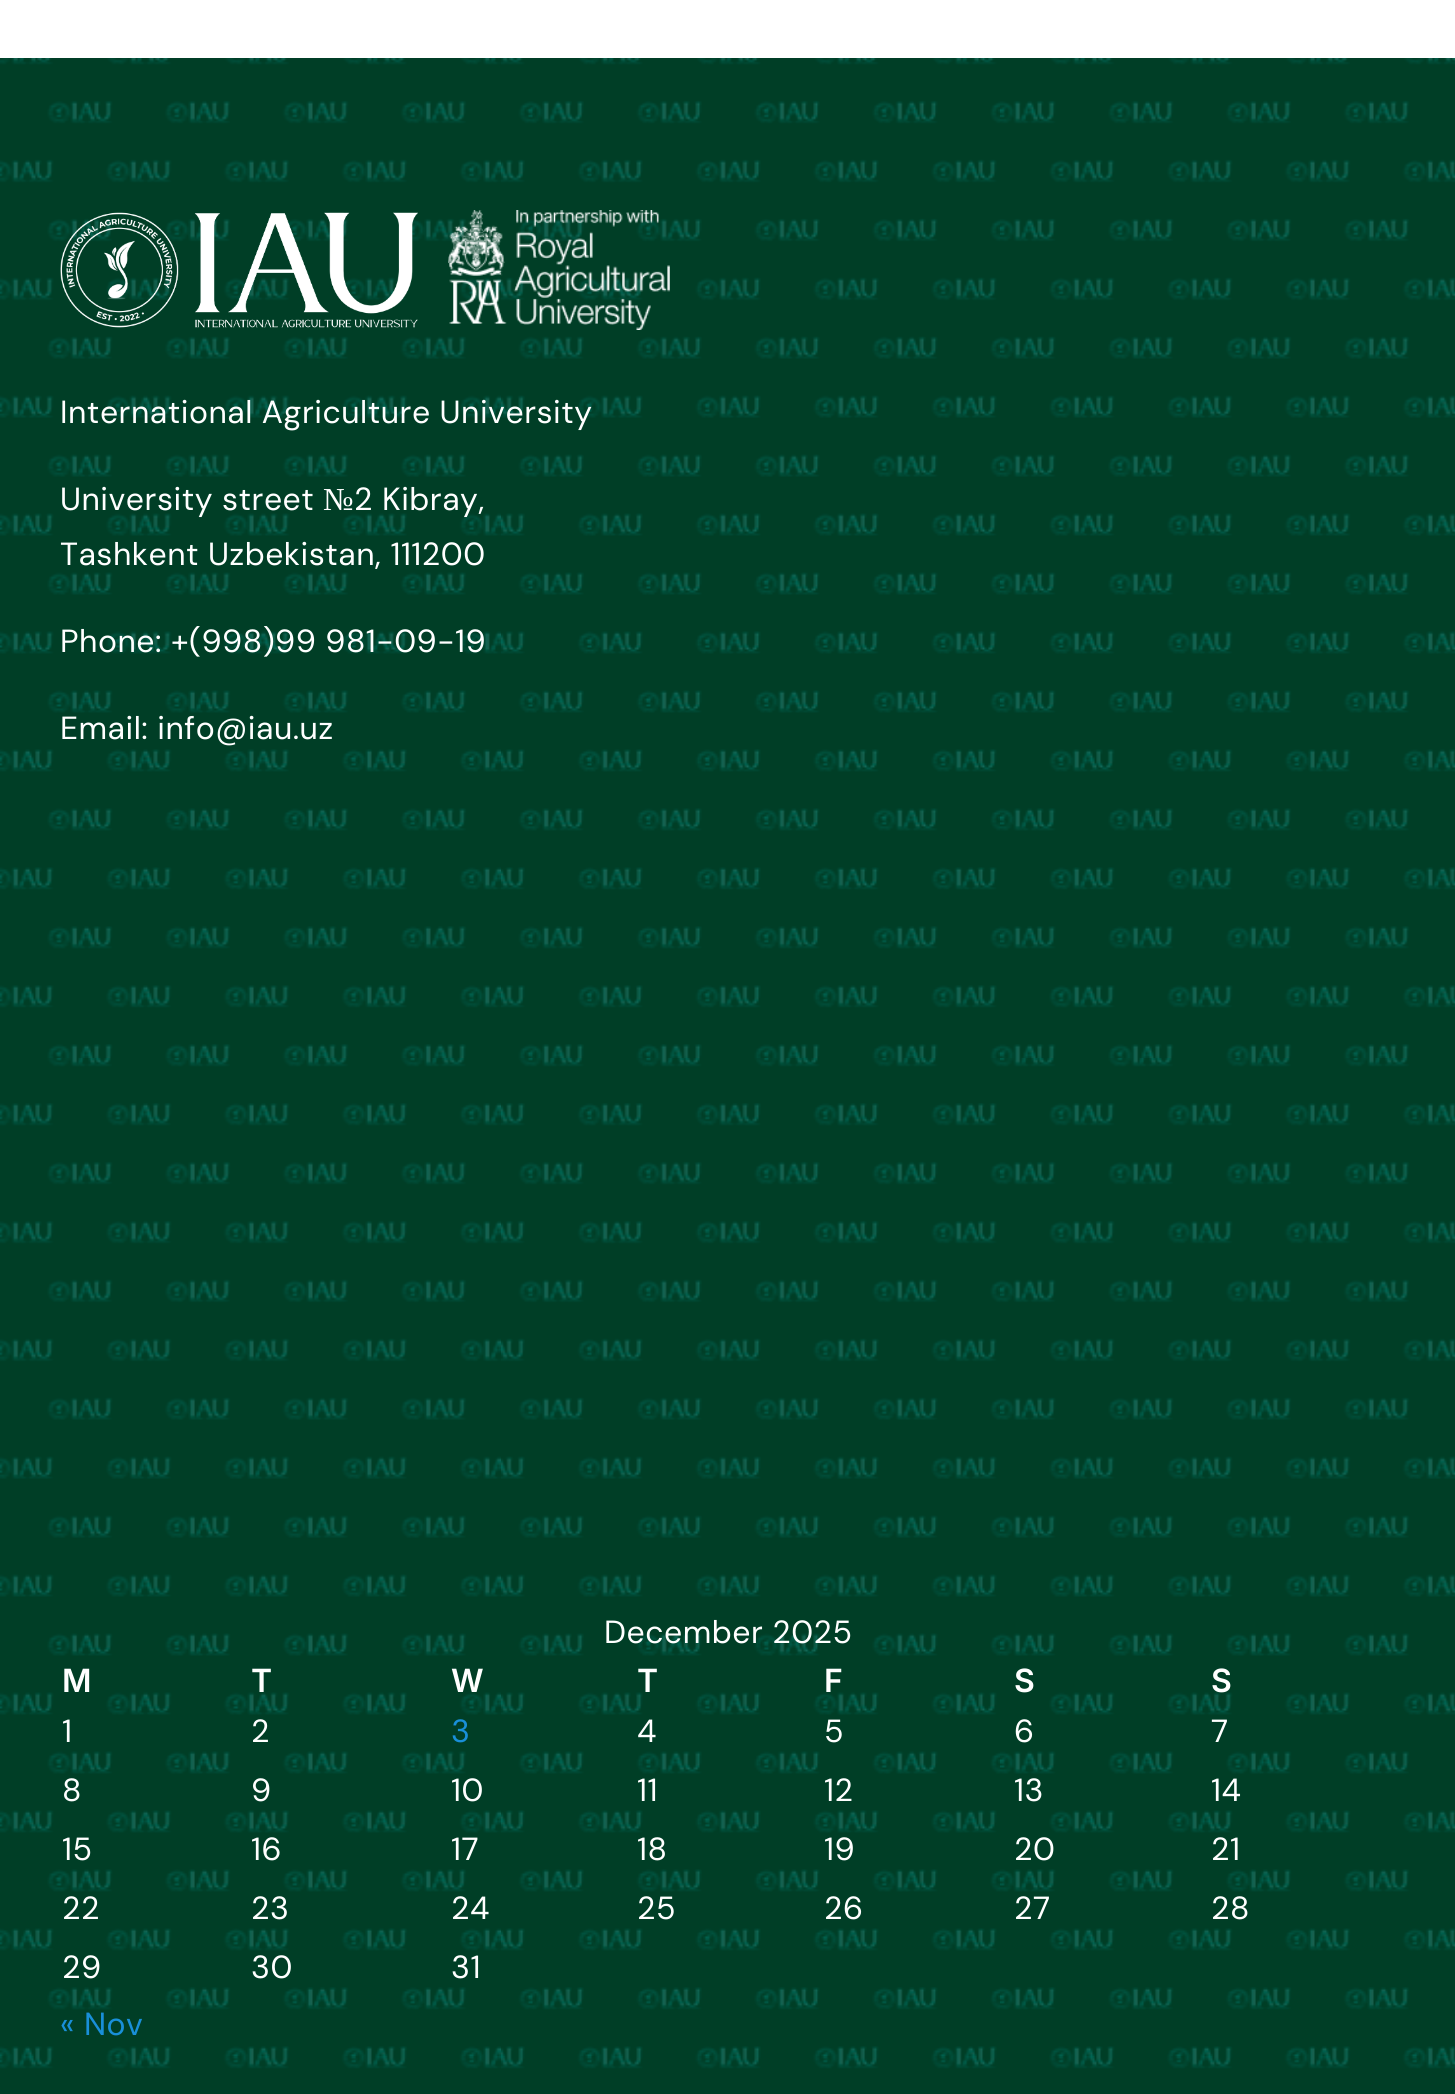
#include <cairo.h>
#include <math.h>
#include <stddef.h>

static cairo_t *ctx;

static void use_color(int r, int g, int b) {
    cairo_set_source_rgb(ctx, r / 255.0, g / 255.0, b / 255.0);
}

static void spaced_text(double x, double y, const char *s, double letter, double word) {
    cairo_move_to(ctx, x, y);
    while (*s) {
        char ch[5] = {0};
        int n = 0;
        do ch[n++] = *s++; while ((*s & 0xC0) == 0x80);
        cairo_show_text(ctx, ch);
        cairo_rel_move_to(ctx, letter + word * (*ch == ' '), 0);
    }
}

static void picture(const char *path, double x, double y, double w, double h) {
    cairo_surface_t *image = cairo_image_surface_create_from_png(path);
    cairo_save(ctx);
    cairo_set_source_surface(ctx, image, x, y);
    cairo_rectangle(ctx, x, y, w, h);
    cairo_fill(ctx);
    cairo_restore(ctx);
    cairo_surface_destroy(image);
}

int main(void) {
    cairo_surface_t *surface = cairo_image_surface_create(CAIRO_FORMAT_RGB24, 1455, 2094);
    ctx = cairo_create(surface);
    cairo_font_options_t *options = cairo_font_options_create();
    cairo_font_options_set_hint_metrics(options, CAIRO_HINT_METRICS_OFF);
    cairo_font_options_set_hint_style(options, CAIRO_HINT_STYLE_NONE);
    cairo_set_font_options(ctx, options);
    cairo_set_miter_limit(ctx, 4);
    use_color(255, 255, 255);
    cairo_paint(ctx);
    picture("img1.png", 0, 58, 1455, 2036);
    picture("img2.png", 60, 212, 358, 116);
    picture("img3.png", 448, 210, 222, 120);
    cairo_select_font_face(ctx, "DM Sans", CAIRO_FONT_SLANT_NORMAL, CAIRO_FONT_WEIGHT_NORMAL);
    cairo_set_font_size(ctx, 32);
    use_color(255, 255, 255);
    spaced_text(60, 423, "International Agriculture University", 0.5, 0);
    spaced_text(60, 510, "University street", 0.5, 0);
    cairo_select_font_face(ctx, "Liberation Serif", CAIRO_FONT_SLANT_NORMAL, CAIRO_FONT_WEIGHT_NORMAL);
    spaced_text(323, 510, "№", 0.5, 0);
    cairo_select_font_face(ctx, "DM Sans", CAIRO_FONT_SLANT_NORMAL, CAIRO_FONT_WEIGHT_NORMAL);
    spaced_text(354, 510, "2 Kibray,", 0.5, 0);
    spaced_text(60, 565, "Tashkent Uzbekistan, 111200", 0.5, 0);
    spaced_text(60, 652, "Phone: +(998)99 981-09-19", 0.5, 0);
    spaced_text(60, 739, "Email: info@iau.uz", 0.5, 0);
    spaced_text(604, 1643, "December 2025", 0.5, 0);
    cairo_select_font_face(ctx, "Inter SemiBold", CAIRO_FONT_SLANT_NORMAL, CAIRO_FONT_WEIGHT_NORMAL);
    cairo_move_to(ctx, 62, 1692);
    cairo_show_text(ctx, "M");
    cairo_move_to(ctx, 251, 1692);
    cairo_show_text(ctx, "T");
    cairo_move_to(ctx, 451, 1692);
    cairo_show_text(ctx, "W");
    cairo_move_to(ctx, 637, 1692);
    cairo_show_text(ctx, "T");
    cairo_move_to(ctx, 824, 1692);
    cairo_show_text(ctx, "F");
    cairo_move_to(ctx, 1014, 1692);
    cairo_show_text(ctx, "S");
    cairo_move_to(ctx, 1211, 1692);
    cairo_show_text(ctx, "S");
    cairo_select_font_face(ctx, "DM Sans", CAIRO_FONT_SLANT_NORMAL, CAIRO_FONT_WEIGHT_NORMAL);
    spaced_text(62, 1742, "1", 0.5, 0);
    spaced_text(251, 1742, "2", 0.5, 0);
    use_color(25, 143, 217);
    spaced_text(451, 1742, "3", 0.5, 0);
    use_color(255, 255, 255);
    spaced_text(637, 1742, "4", 0.5, 0);
    spaced_text(824, 1742, "5", 0.5, 0);
    spaced_text(1014, 1742, "6", 0.5, 0);
    spaced_text(1211, 1742, "7", 0.5, 0);
    spaced_text(62, 1801, "8", 0.5, 0);
    spaced_text(251, 1801, "9", 0.5, 0);
    spaced_text(451, 1801, "10", 0.5, 0);
    spaced_text(637, 1801, "11", 0.5, 0);
    spaced_text(824, 1801, "12", 0.5, 0);
    spaced_text(1014, 1801, "13", 0.5, 0);
    spaced_text(1211, 1801, "14", 0.5, 0);
    spaced_text(62, 1860, "15", 0.5, 0);
    spaced_text(251, 1860, "16", 0.5, 0);
    spaced_text(451, 1860, "17", 0.5, 0);
    spaced_text(637, 1860, "18", 0.5, 0);
    spaced_text(824, 1860, "19", 0.5, 0);
    spaced_text(1014, 1860, "20", 0.5, 0);
    spaced_text(1211, 1860, "21", 0.5, 0);
    spaced_text(62, 1919, "22", 0.5, 0);
    spaced_text(251, 1919, "23", 0.5, 0);
    spaced_text(451, 1919, "24", 0.5, 0);
    spaced_text(637, 1919, "25", 0.5, 0);
    spaced_text(824, 1919, "26", 0.5, 0);
    spaced_text(1014, 1919, "27", 0.5, 0);
    spaced_text(1211, 1919, "28", 0.5, 0);
    spaced_text(62, 1978, "29", 0.5, 0);
    spaced_text(251, 1978, "30", 0.5, 0);
    spaced_text(451, 1978, "31", 0.5, 0);
    use_color(25, 143, 217);
    spaced_text(60, 2035, "« Nov", 0.5, 0);
    cairo_surface_write_to_png(surface, "result.png");
    cairo_font_options_destroy(options);
    cairo_destroy(ctx);
    cairo_surface_destroy(surface);
    return 0;
}
